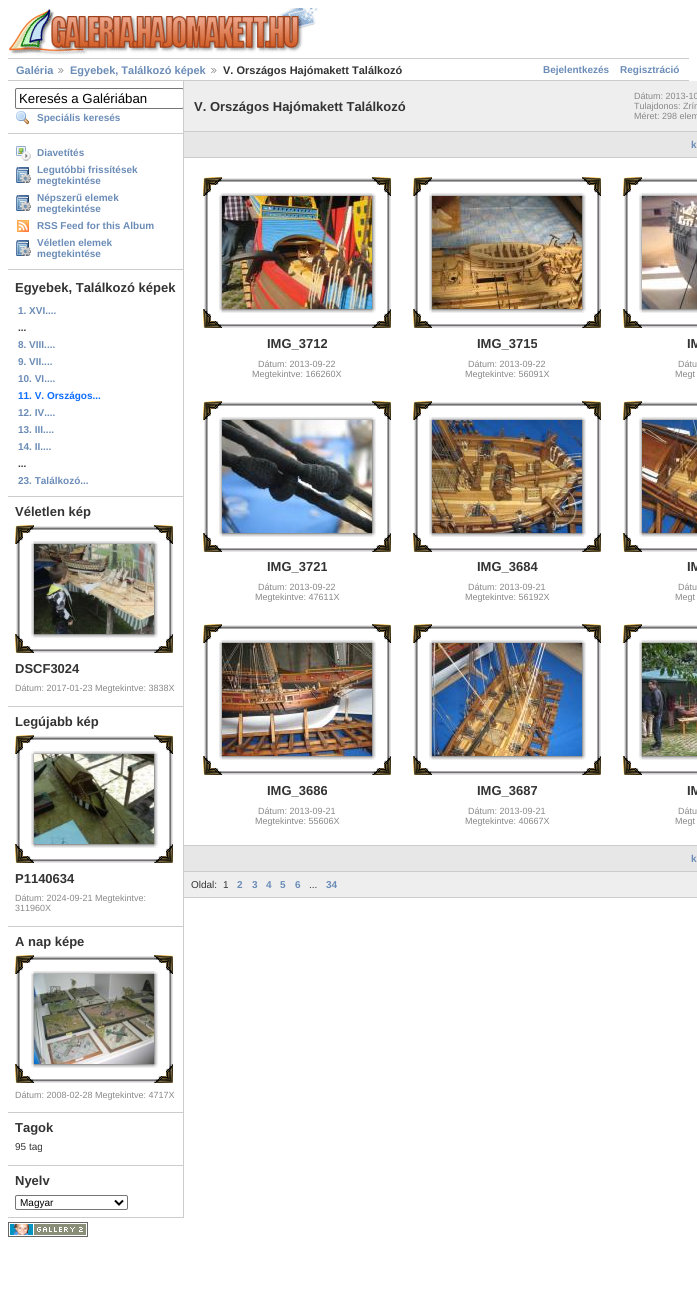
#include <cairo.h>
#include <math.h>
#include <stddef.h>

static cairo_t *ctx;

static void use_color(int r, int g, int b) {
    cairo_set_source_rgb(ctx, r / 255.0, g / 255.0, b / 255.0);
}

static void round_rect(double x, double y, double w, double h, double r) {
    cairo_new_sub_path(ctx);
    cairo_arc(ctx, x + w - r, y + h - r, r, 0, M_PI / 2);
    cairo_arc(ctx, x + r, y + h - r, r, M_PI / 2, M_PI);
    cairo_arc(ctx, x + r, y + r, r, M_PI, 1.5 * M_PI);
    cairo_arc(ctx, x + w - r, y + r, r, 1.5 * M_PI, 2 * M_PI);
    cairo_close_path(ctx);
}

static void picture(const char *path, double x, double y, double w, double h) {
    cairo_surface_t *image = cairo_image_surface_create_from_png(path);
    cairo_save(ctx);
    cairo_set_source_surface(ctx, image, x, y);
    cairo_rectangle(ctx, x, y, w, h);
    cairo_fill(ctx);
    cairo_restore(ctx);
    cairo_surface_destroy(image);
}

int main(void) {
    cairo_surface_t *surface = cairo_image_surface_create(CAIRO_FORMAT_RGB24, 697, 1311);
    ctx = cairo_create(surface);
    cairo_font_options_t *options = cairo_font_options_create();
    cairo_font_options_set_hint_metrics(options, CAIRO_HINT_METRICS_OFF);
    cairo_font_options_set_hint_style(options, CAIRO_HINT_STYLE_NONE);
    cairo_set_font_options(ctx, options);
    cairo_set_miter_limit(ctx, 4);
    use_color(255, 255, 255);
    cairo_paint(ctx);
    picture("img1.png", 9, 8, 309, 48);
    use_color(204, 204, 204);
    cairo_rectangle(ctx, 8, 58, 681, 1);
    cairo_fill(ctx);
    cairo_rectangle(ctx, 8, 80, 681, 1);
    cairo_fill(ctx);
    cairo_select_font_face(ctx, "Liberation Sans", CAIRO_FONT_SLANT_NORMAL, CAIRO_FONT_WEIGHT_BOLD);
    cairo_set_font_size(ctx, 11);
    use_color(107, 140, 183);
    cairo_move_to(ctx, 16, 74);
    cairo_show_text(ctx, "Galéria");
    picture("img2.png", 58, 68, 6, 5);
    cairo_move_to(ctx, 70, 74);
    cairo_show_text(ctx, "Egyebek, Találkozó képek");
    picture("img2.png", 211, 68, 6, 5);
    use_color(51, 51, 51);
    cairo_move_to(ctx, 223, 74);
    cairo_show_text(ctx, "V. Országos Hajómakett Találkozó");
    cairo_set_font_size(ctx, 10);
    use_color(107, 140, 183);
    cairo_move_to(ctx, 543, 73);
    cairo_show_text(ctx, "Bejelentkezés");
    cairo_move_to(ctx, 620, 73);
    cairo_show_text(ctx, "Regisztráció");
    use_color(204, 204, 204);
    cairo_rectangle(ctx, 183, 81, 1, 1137);
    cairo_fill(ctx);
    cairo_rectangle(ctx, 8, 133, 175, 1);
    cairo_fill(ctx);
    cairo_save(ctx);
    cairo_rectangle(ctx, 8, 81, 175, 1137);
    cairo_clip(ctx);
    round_rect(15.5, 88.5, 168, 20, 1.5);
    use_color(118, 118, 118);
    cairo_set_line_width(ctx, 1);
    cairo_stroke(ctx);
    cairo_restore(ctx);
    cairo_select_font_face(ctx, "Liberation Sans", CAIRO_FONT_SLANT_NORMAL, CAIRO_FONT_WEIGHT_NORMAL);
    cairo_set_font_size(ctx, 13.25);
    use_color(0, 0, 0);
    cairo_move_to(ctx, 19, 103);
    cairo_show_text(ctx, "Keresés a Galériában");
    picture("img3.png", 16, 111, 13, 14);
    cairo_select_font_face(ctx, "Liberation Sans", CAIRO_FONT_SLANT_NORMAL, CAIRO_FONT_WEIGHT_BOLD);
    cairo_set_font_size(ctx, 10);
    use_color(107, 140, 183);
    cairo_move_to(ctx, 37, 121);
    cairo_show_text(ctx, "Speciális keresés");
    use_color(204, 204, 204);
    cairo_rectangle(ctx, 8, 269, 175, 1);
    cairo_fill(ctx);
    picture("img4.png", 16, 146, 15, 15);
    use_color(107, 140, 183);
    cairo_move_to(ctx, 37, 156);
    cairo_show_text(ctx, "Diavetítés");
    picture("img5.png", 16, 167, 15, 16);
    cairo_move_to(ctx, 37, 173);
    cairo_show_text(ctx, "Legutóbbi frissítések");
    cairo_move_to(ctx, 37, 184);
    cairo_show_text(ctx, "megtekintése");
    picture("img5.png", 16, 195, 15, 16);
    cairo_move_to(ctx, 37, 201);
    cairo_show_text(ctx, "Népszerű elemek");
    cairo_move_to(ctx, 37, 212);
    cairo_show_text(ctx, "megtekintése");
    picture("img6.png", 17, 220, 12, 12);
    cairo_move_to(ctx, 37, 229);
    cairo_show_text(ctx, "RSS Feed for this Album");
    picture("img5.png", 16, 240, 15, 16);
    cairo_move_to(ctx, 37, 246);
    cairo_show_text(ctx, "Véletlen elemek");
    cairo_move_to(ctx, 37, 257);
    cairo_show_text(ctx, "megtekintése");
    use_color(204, 204, 204);
    cairo_rectangle(ctx, 8, 496, 175, 1);
    cairo_fill(ctx);
    cairo_set_font_size(ctx, 13);
    use_color(51, 51, 51);
    cairo_move_to(ctx, 15, 292);
    cairo_show_text(ctx, "Egyebek, Találkozó képek");
    cairo_set_font_size(ctx, 10);
    use_color(107, 140, 183);
    cairo_move_to(ctx, 18, 314);
    cairo_show_text(ctx, "1. XVI....");
    use_color(51, 51, 51);
    cairo_move_to(ctx, 18, 331);
    cairo_show_text(ctx, "...");
    use_color(107, 140, 183);
    cairo_move_to(ctx, 18, 348);
    cairo_show_text(ctx, "8. VIII....");
    cairo_move_to(ctx, 18, 365);
    cairo_show_text(ctx, "9. VII....");
    cairo_move_to(ctx, 18, 382);
    cairo_show_text(ctx, "10. VI....");
    use_color(11, 108, 255);
    cairo_move_to(ctx, 18, 399);
    cairo_show_text(ctx, "11. V. Országos...");
    use_color(107, 140, 183);
    cairo_move_to(ctx, 18, 416);
    cairo_show_text(ctx, "12. IV....");
    cairo_move_to(ctx, 18, 433);
    cairo_show_text(ctx, "13. III....");
    cairo_move_to(ctx, 18, 450);
    cairo_show_text(ctx, "14. II....");
    use_color(51, 51, 51);
    cairo_move_to(ctx, 18, 467);
    cairo_show_text(ctx, "...");
    use_color(107, 140, 183);
    cairo_move_to(ctx, 18, 484);
    cairo_show_text(ctx, "23. Találkozó...");
    use_color(204, 204, 204);
    cairo_rectangle(ctx, 8, 706, 175, 1);
    cairo_fill(ctx);
    cairo_set_font_size(ctx, 13);
    use_color(51, 51, 51);
    cairo_move_to(ctx, 15, 516);
    cairo_show_text(ctx, "Véletlen kép");
    picture("img7.png", 15, 525, 19, 19);
    picture("img8.png", 34, 526, 120, 18);
    picture("img9.png", 154, 525, 19, 19);
    picture("img10.png", 16, 544, 18, 90);
    picture("img11.png", 34, 544, 120, 90);
    picture("img12.png", 154, 544, 19, 90);
    picture("img13.png", 15, 634, 19, 19);
    picture("img14.png", 34, 634, 120, 19);
    picture("img15.png", 154, 634, 19, 19);
    cairo_move_to(ctx, 15, 673);
    cairo_show_text(ctx, "DSCF3024");
    cairo_select_font_face(ctx, "Liberation Sans", CAIRO_FONT_SLANT_NORMAL, CAIRO_FONT_WEIGHT_NORMAL);
    cairo_set_font_size(ctx, 9);
    use_color(136, 136, 136);
    cairo_move_to(ctx, 15, 691);
    cairo_show_text(ctx, "Dátum: 2017-01-23 Megtekintve: 3838X");
    use_color(204, 204, 204);
    cairo_rectangle(ctx, 8, 926, 175, 1);
    cairo_fill(ctx);
    cairo_select_font_face(ctx, "Liberation Sans", CAIRO_FONT_SLANT_NORMAL, CAIRO_FONT_WEIGHT_BOLD);
    cairo_set_font_size(ctx, 13);
    use_color(51, 51, 51);
    cairo_move_to(ctx, 15, 726);
    cairo_show_text(ctx, "Legújabb kép");
    picture("img7.png", 15, 735, 19, 19);
    picture("img8.png", 34, 736, 120, 18);
    picture("img9.png", 154, 735, 19, 19);
    picture("img10.png", 16, 754, 18, 90);
    picture("img16.png", 34, 754, 120, 90);
    picture("img12.png", 154, 754, 19, 90);
    picture("img13.png", 15, 844, 19, 19);
    picture("img14.png", 34, 844, 120, 19);
    picture("img15.png", 154, 844, 19, 19);
    cairo_move_to(ctx, 15, 883);
    cairo_show_text(ctx, "P1140634");
    cairo_select_font_face(ctx, "Liberation Sans", CAIRO_FONT_SLANT_NORMAL, CAIRO_FONT_WEIGHT_NORMAL);
    cairo_set_font_size(ctx, 9);
    use_color(136, 136, 136);
    cairo_move_to(ctx, 15, 901);
    cairo_show_text(ctx, "Dátum: 2024-09-21 Megtekintve:");
    cairo_move_to(ctx, 15, 911);
    cairo_show_text(ctx, "311960X");
    use_color(204, 204, 204);
    cairo_rectangle(ctx, 8, 1112, 175, 1);
    cairo_fill(ctx);
    cairo_select_font_face(ctx, "Liberation Sans", CAIRO_FONT_SLANT_NORMAL, CAIRO_FONT_WEIGHT_BOLD);
    cairo_set_font_size(ctx, 13);
    use_color(51, 51, 51);
    cairo_move_to(ctx, 15, 946);
    cairo_show_text(ctx, "A nap képe");
    picture("img7.png", 15, 955, 19, 19);
    picture("img8.png", 34, 956, 120, 18);
    picture("img9.png", 154, 955, 19, 19);
    picture("img10.png", 16, 974, 18, 90);
    picture("img17.png", 34, 974, 120, 90);
    picture("img12.png", 154, 974, 19, 90);
    picture("img13.png", 15, 1064, 19, 19);
    picture("img14.png", 34, 1064, 120, 19);
    picture("img15.png", 154, 1064, 19, 19);
    cairo_select_font_face(ctx, "Liberation Sans", CAIRO_FONT_SLANT_NORMAL, CAIRO_FONT_WEIGHT_NORMAL);
    cairo_set_font_size(ctx, 9);
    use_color(136, 136, 136);
    cairo_move_to(ctx, 15, 1098);
    cairo_show_text(ctx, "Dátum: 2008-02-28 Megtekintve: 4717X");
    use_color(204, 204, 204);
    cairo_rectangle(ctx, 8, 1165, 175, 1);
    cairo_fill(ctx);
    cairo_select_font_face(ctx, "Liberation Sans", CAIRO_FONT_SLANT_NORMAL, CAIRO_FONT_WEIGHT_BOLD);
    cairo_set_font_size(ctx, 13);
    use_color(51, 51, 51);
    cairo_move_to(ctx, 15, 1132);
    cairo_show_text(ctx, "Tagok");
    cairo_select_font_face(ctx, "Liberation Sans", CAIRO_FONT_SLANT_NORMAL, CAIRO_FONT_WEIGHT_NORMAL);
    cairo_set_font_size(ctx, 10);
    cairo_move_to(ctx, 15, 1150);
    cairo_show_text(ctx, "95 tag");
    use_color(204, 204, 204);
    cairo_rectangle(ctx, 8, 1217, 175, 1);
    cairo_fill(ctx);
    cairo_select_font_face(ctx, "Liberation Sans", CAIRO_FONT_SLANT_NORMAL, CAIRO_FONT_WEIGHT_BOLD);
    cairo_set_font_size(ctx, 13);
    use_color(51, 51, 51);
    cairo_move_to(ctx, 15, 1185);
    cairo_show_text(ctx, "Nyelv");
    round_rect(15.5, 1195.5, 112, 14, 1.5);
    use_color(118, 118, 118);
    cairo_set_line_width(ctx, 1);
    cairo_stroke(ctx);
    cairo_new_path(ctx);
    cairo_move_to(ctx, 115, 1200.5);
    cairo_line_to(ctx, 119, 1204.5);
    cairo_line_to(ctx, 123, 1200.5);
    use_color(0, 0, 0);
    cairo_set_line_width(ctx, 2);
    cairo_stroke(ctx);
    cairo_select_font_face(ctx, "Liberation Sans", CAIRO_FONT_SLANT_NORMAL, CAIRO_FONT_WEIGHT_NORMAL);
    cairo_set_font_size(ctx, 10);
    cairo_move_to(ctx, 20, 1206);
    cairo_show_text(ctx, "Magyar");
    use_color(238, 238, 238);
    cairo_rectangle(ctx, 184, 81, 513, 50);
    cairo_fill(ctx);
    use_color(204, 204, 204);
    cairo_rectangle(ctx, 184, 131, 513, 1);
    cairo_fill(ctx);
    cairo_select_font_face(ctx, "Liberation Sans", CAIRO_FONT_SLANT_NORMAL, CAIRO_FONT_WEIGHT_BOLD);
    cairo_set_font_size(ctx, 13);
    use_color(51, 51, 51);
    cairo_move_to(ctx, 194, 111);
    cairo_show_text(ctx, "V. Országos Hajómakett Találkozó");
    cairo_select_font_face(ctx, "Liberation Sans", CAIRO_FONT_SLANT_NORMAL, CAIRO_FONT_WEIGHT_NORMAL);
    cairo_set_font_size(ctx, 9);
    use_color(136, 136, 136);
    cairo_move_to(ctx, 634, 99);
    cairo_show_text(ctx, "Dátum: 2013-10");
    cairo_move_to(ctx, 634, 109);
    cairo_show_text(ctx, "Tulajdonos: Zrín");
    cairo_move_to(ctx, 634, 119);
    cairo_show_text(ctx, "Méret: 298 elem");
    use_color(231, 231, 231);
    cairo_rectangle(ctx, 184, 132, 513, 25);
    cairo_fill(ctx);
    use_color(204, 204, 204);
    cairo_rectangle(ctx, 184, 157, 513, 1);
    cairo_fill(ctx);
    cairo_select_font_face(ctx, "Liberation Sans", CAIRO_FONT_SLANT_NORMAL, CAIRO_FONT_WEIGHT_BOLD);
    cairo_set_font_size(ctx, 10);
    use_color(107, 140, 183);
    cairo_move_to(ctx, 691, 148);
    cairo_show_text(ctx, "k");
    use_color(204, 204, 204);
    cairo_rectangle(ctx, 184, 845, 513, 1);
    cairo_fill(ctx);
    picture("img7.png", 203, 177, 19, 19);
    picture("img18.png", 222, 178, 150, 18);
    picture("img9.png", 372, 177, 19, 19);
    picture("img19.png", 204, 196, 18, 113);
    picture("img20.png", 222, 196, 150, 113);
    picture("img21.png", 372, 196, 19, 113);
    picture("img13.png", 203, 309, 19, 19);
    picture("img22.png", 222, 309, 150, 19);
    picture("img15.png", 372, 309, 19, 19);
    cairo_set_font_size(ctx, 13);
    use_color(51, 51, 51);
    cairo_move_to(ctx, 267, 348);
    cairo_show_text(ctx, "IMG_3712");
    cairo_select_font_face(ctx, "Liberation Sans", CAIRO_FONT_SLANT_NORMAL, CAIRO_FONT_WEIGHT_NORMAL);
    cairo_set_font_size(ctx, 9);
    use_color(136, 136, 136);
    cairo_move_to(ctx, 258, 367);
    cairo_show_text(ctx, "Dátum: 2013-09-22");
    cairo_move_to(ctx, 252, 377);
    cairo_show_text(ctx, "Megtekintve: 166260X");
    picture("img7.png", 413, 177, 19, 19);
    picture("img18.png", 432, 178, 150, 18);
    picture("img9.png", 582, 177, 19, 19);
    picture("img19.png", 414, 196, 18, 113);
    picture("img23.png", 432, 196, 150, 113);
    picture("img21.png", 582, 196, 19, 113);
    picture("img13.png", 413, 309, 19, 19);
    picture("img22.png", 432, 309, 150, 19);
    picture("img15.png", 582, 309, 19, 19);
    cairo_select_font_face(ctx, "Liberation Sans", CAIRO_FONT_SLANT_NORMAL, CAIRO_FONT_WEIGHT_BOLD);
    cairo_set_font_size(ctx, 13);
    use_color(51, 51, 51);
    cairo_move_to(ctx, 477, 348);
    cairo_show_text(ctx, "IMG_3715");
    cairo_select_font_face(ctx, "Liberation Sans", CAIRO_FONT_SLANT_NORMAL, CAIRO_FONT_WEIGHT_NORMAL);
    cairo_set_font_size(ctx, 9);
    use_color(136, 136, 136);
    cairo_move_to(ctx, 468, 367);
    cairo_show_text(ctx, "Dátum: 2013-09-22");
    cairo_move_to(ctx, 465, 377);
    cairo_show_text(ctx, "Megtekintve: 56091X");
    picture("img7.png", 623, 177, 19, 19);
    picture("img24.png", 642, 178, 55, 18);
    picture("img19.png", 624, 196, 18, 113);
    picture("img25.png", 642, 196, 55, 113);
    picture("img13.png", 623, 309, 19, 19);
    picture("img26.png", 642, 309, 55, 19);
    cairo_select_font_face(ctx, "Liberation Sans", CAIRO_FONT_SLANT_NORMAL, CAIRO_FONT_WEIGHT_BOLD);
    cairo_set_font_size(ctx, 13);
    use_color(51, 51, 51);
    cairo_move_to(ctx, 687, 348);
    cairo_show_text(ctx, "IM");
    cairo_select_font_face(ctx, "Liberation Sans", CAIRO_FONT_SLANT_NORMAL, CAIRO_FONT_WEIGHT_NORMAL);
    cairo_set_font_size(ctx, 9);
    use_color(136, 136, 136);
    cairo_move_to(ctx, 678, 367);
    cairo_show_text(ctx, "Dátu");
    cairo_move_to(ctx, 675, 377);
    cairo_show_text(ctx, "Megt");
    picture("img7.png", 203, 401, 19, 19);
    picture("img18.png", 222, 402, 150, 18);
    picture("img9.png", 372, 401, 19, 19);
    picture("img19.png", 204, 420, 18, 113);
    picture("img27.png", 222, 420, 150, 113);
    picture("img21.png", 372, 420, 19, 113);
    picture("img13.png", 203, 533, 19, 19);
    picture("img22.png", 222, 533, 150, 19);
    picture("img15.png", 372, 533, 19, 19);
    cairo_select_font_face(ctx, "Liberation Sans", CAIRO_FONT_SLANT_NORMAL, CAIRO_FONT_WEIGHT_BOLD);
    cairo_set_font_size(ctx, 13);
    use_color(51, 51, 51);
    cairo_move_to(ctx, 267, 571);
    cairo_show_text(ctx, "IMG_3721");
    cairo_select_font_face(ctx, "Liberation Sans", CAIRO_FONT_SLANT_NORMAL, CAIRO_FONT_WEIGHT_NORMAL);
    cairo_set_font_size(ctx, 9);
    use_color(136, 136, 136);
    cairo_move_to(ctx, 258, 590);
    cairo_show_text(ctx, "Dátum: 2013-09-22");
    cairo_move_to(ctx, 255, 600);
    cairo_show_text(ctx, "Megtekintve: 47611X");
    picture("img7.png", 413, 401, 19, 19);
    picture("img18.png", 432, 402, 150, 18);
    picture("img9.png", 582, 401, 19, 19);
    picture("img19.png", 414, 420, 18, 113);
    picture("img28.png", 432, 420, 150, 113);
    picture("img21.png", 582, 420, 19, 113);
    picture("img13.png", 413, 533, 19, 19);
    picture("img22.png", 432, 533, 150, 19);
    picture("img15.png", 582, 533, 19, 19);
    cairo_select_font_face(ctx, "Liberation Sans", CAIRO_FONT_SLANT_NORMAL, CAIRO_FONT_WEIGHT_BOLD);
    cairo_set_font_size(ctx, 13);
    use_color(51, 51, 51);
    cairo_move_to(ctx, 477, 571);
    cairo_show_text(ctx, "IMG_3684");
    cairo_select_font_face(ctx, "Liberation Sans", CAIRO_FONT_SLANT_NORMAL, CAIRO_FONT_WEIGHT_NORMAL);
    cairo_set_font_size(ctx, 9);
    use_color(136, 136, 136);
    cairo_move_to(ctx, 468, 590);
    cairo_show_text(ctx, "Dátum: 2013-09-21");
    cairo_move_to(ctx, 465, 600);
    cairo_show_text(ctx, "Megtekintve: 56192X");
    picture("img7.png", 623, 401, 19, 19);
    picture("img24.png", 642, 402, 55, 18);
    picture("img19.png", 624, 420, 18, 113);
    picture("img29.png", 642, 420, 55, 113);
    picture("img13.png", 623, 533, 19, 19);
    picture("img26.png", 642, 533, 55, 19);
    cairo_select_font_face(ctx, "Liberation Sans", CAIRO_FONT_SLANT_NORMAL, CAIRO_FONT_WEIGHT_BOLD);
    cairo_set_font_size(ctx, 13);
    use_color(51, 51, 51);
    cairo_move_to(ctx, 687, 571);
    cairo_show_text(ctx, "IM");
    cairo_select_font_face(ctx, "Liberation Sans", CAIRO_FONT_SLANT_NORMAL, CAIRO_FONT_WEIGHT_NORMAL);
    cairo_set_font_size(ctx, 9);
    use_color(136, 136, 136);
    cairo_move_to(ctx, 678, 590);
    cairo_show_text(ctx, "Dátu");
    cairo_move_to(ctx, 675, 600);
    cairo_show_text(ctx, "Megt");
    picture("img7.png", 203, 624, 19, 19);
    picture("img18.png", 222, 625, 150, 18);
    picture("img9.png", 372, 624, 19, 19);
    picture("img19.png", 204, 643, 18, 113);
    picture("img30.png", 222, 643, 150, 113);
    picture("img21.png", 372, 643, 19, 113);
    picture("img13.png", 203, 756, 19, 19);
    picture("img22.png", 222, 756, 150, 19);
    picture("img15.png", 372, 756, 19, 19);
    cairo_select_font_face(ctx, "Liberation Sans", CAIRO_FONT_SLANT_NORMAL, CAIRO_FONT_WEIGHT_BOLD);
    cairo_set_font_size(ctx, 13);
    use_color(51, 51, 51);
    cairo_move_to(ctx, 267, 795);
    cairo_show_text(ctx, "IMG_3686");
    cairo_select_font_face(ctx, "Liberation Sans", CAIRO_FONT_SLANT_NORMAL, CAIRO_FONT_WEIGHT_NORMAL);
    cairo_set_font_size(ctx, 9);
    use_color(136, 136, 136);
    cairo_move_to(ctx, 258, 814);
    cairo_show_text(ctx, "Dátum: 2013-09-21");
    cairo_move_to(ctx, 255, 824);
    cairo_show_text(ctx, "Megtekintve: 55606X");
    picture("img7.png", 413, 624, 19, 19);
    picture("img18.png", 432, 625, 150, 18);
    picture("img9.png", 582, 624, 19, 19);
    picture("img19.png", 414, 643, 18, 113);
    picture("img31.png", 432, 643, 150, 113);
    picture("img21.png", 582, 643, 19, 113);
    picture("img13.png", 413, 756, 19, 19);
    picture("img22.png", 432, 756, 150, 19);
    picture("img15.png", 582, 756, 19, 19);
    cairo_select_font_face(ctx, "Liberation Sans", CAIRO_FONT_SLANT_NORMAL, CAIRO_FONT_WEIGHT_BOLD);
    cairo_set_font_size(ctx, 13);
    use_color(51, 51, 51);
    cairo_move_to(ctx, 477, 795);
    cairo_show_text(ctx, "IMG_3687");
    cairo_select_font_face(ctx, "Liberation Sans", CAIRO_FONT_SLANT_NORMAL, CAIRO_FONT_WEIGHT_NORMAL);
    cairo_set_font_size(ctx, 9);
    use_color(136, 136, 136);
    cairo_move_to(ctx, 468, 814);
    cairo_show_text(ctx, "Dátum: 2013-09-21");
    cairo_move_to(ctx, 465, 824);
    cairo_show_text(ctx, "Megtekintve: 40667X");
    picture("img7.png", 623, 624, 19, 19);
    picture("img24.png", 642, 625, 55, 18);
    picture("img19.png", 624, 643, 18, 113);
    picture("img32.png", 642, 643, 55, 113);
    picture("img13.png", 623, 756, 19, 19);
    picture("img26.png", 642, 756, 55, 19);
    cairo_select_font_face(ctx, "Liberation Sans", CAIRO_FONT_SLANT_NORMAL, CAIRO_FONT_WEIGHT_BOLD);
    cairo_set_font_size(ctx, 13);
    use_color(51, 51, 51);
    cairo_move_to(ctx, 687, 795);
    cairo_show_text(ctx, "IM");
    cairo_select_font_face(ctx, "Liberation Sans", CAIRO_FONT_SLANT_NORMAL, CAIRO_FONT_WEIGHT_NORMAL);
    cairo_set_font_size(ctx, 9);
    use_color(136, 136, 136);
    cairo_move_to(ctx, 678, 814);
    cairo_show_text(ctx, "Dátu");
    cairo_move_to(ctx, 675, 824);
    cairo_show_text(ctx, "Megt");
    use_color(231, 231, 231);
    cairo_rectangle(ctx, 184, 846, 513, 25);
    cairo_fill(ctx);
    use_color(204, 204, 204);
    cairo_rectangle(ctx, 184, 871, 513, 1);
    cairo_fill(ctx);
    cairo_select_font_face(ctx, "Liberation Sans", CAIRO_FONT_SLANT_NORMAL, CAIRO_FONT_WEIGHT_BOLD);
    cairo_set_font_size(ctx, 10);
    use_color(107, 140, 183);
    cairo_move_to(ctx, 691, 862);
    cairo_show_text(ctx, "k");
    use_color(238, 238, 238);
    cairo_rectangle(ctx, 184, 872, 513, 25);
    cairo_fill(ctx);
    use_color(204, 204, 204);
    cairo_rectangle(ctx, 184, 897, 513, 1);
    cairo_fill(ctx);
    cairo_select_font_face(ctx, "Liberation Sans", CAIRO_FONT_SLANT_NORMAL, CAIRO_FONT_WEIGHT_NORMAL);
    use_color(51, 51, 51);
    cairo_move_to(ctx, 191, 888);
    cairo_show_text(ctx, "Oldal:");
    cairo_move_to(ctx, 223, 888);
    cairo_show_text(ctx, "1");
    cairo_select_font_face(ctx, "Liberation Sans", CAIRO_FONT_SLANT_NORMAL, CAIRO_FONT_WEIGHT_BOLD);
    use_color(107, 140, 183);
    cairo_move_to(ctx, 237, 888);
    cairo_show_text(ctx, "2");
    cairo_move_to(ctx, 252, 888);
    cairo_show_text(ctx, "3");
    cairo_move_to(ctx, 266, 888);
    cairo_show_text(ctx, "4");
    cairo_move_to(ctx, 280, 888);
    cairo_show_text(ctx, "5");
    cairo_move_to(ctx, 295, 888);
    cairo_show_text(ctx, "6");
    cairo_select_font_face(ctx, "Liberation Sans", CAIRO_FONT_SLANT_NORMAL, CAIRO_FONT_WEIGHT_NORMAL);
    use_color(51, 51, 51);
    cairo_move_to(ctx, 309, 888);
    cairo_show_text(ctx, "...");
    cairo_select_font_face(ctx, "Liberation Sans", CAIRO_FONT_SLANT_NORMAL, CAIRO_FONT_WEIGHT_BOLD);
    use_color(107, 140, 183);
    cairo_move_to(ctx, 326, 888);
    cairo_show_text(ctx, "34");
    picture("img33.png", 8, 1222, 80, 15);
    cairo_surface_write_to_png(surface, "result.png");
    cairo_font_options_destroy(options);
    cairo_destroy(ctx);
    cairo_surface_destroy(surface);
    return 0;
}
